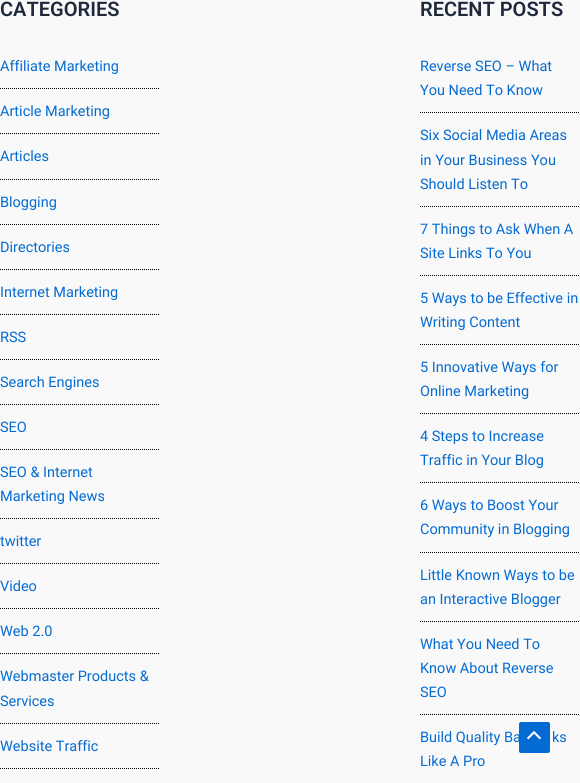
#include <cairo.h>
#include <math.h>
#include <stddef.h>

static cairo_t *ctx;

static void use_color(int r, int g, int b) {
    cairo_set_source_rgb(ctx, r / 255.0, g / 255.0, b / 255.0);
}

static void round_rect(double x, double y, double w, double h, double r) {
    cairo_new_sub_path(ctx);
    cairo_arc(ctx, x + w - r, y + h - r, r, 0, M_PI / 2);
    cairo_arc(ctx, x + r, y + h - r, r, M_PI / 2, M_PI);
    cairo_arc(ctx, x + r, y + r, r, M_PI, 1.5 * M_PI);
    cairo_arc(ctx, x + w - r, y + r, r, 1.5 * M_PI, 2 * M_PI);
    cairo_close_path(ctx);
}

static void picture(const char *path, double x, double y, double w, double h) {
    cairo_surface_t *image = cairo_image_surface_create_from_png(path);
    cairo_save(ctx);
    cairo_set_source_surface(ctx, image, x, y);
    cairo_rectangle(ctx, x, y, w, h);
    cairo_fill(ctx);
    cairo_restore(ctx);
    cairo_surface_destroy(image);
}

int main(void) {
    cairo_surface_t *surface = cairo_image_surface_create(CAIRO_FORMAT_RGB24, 580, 783);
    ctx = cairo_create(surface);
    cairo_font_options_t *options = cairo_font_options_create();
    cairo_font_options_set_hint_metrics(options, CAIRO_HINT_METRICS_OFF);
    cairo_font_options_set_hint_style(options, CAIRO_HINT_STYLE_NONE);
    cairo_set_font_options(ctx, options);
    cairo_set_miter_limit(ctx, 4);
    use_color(249, 249, 249);
    cairo_paint(ctx);
    cairo_select_font_face(ctx, "Roboto SemiBold", CAIRO_FONT_SLANT_NORMAL, CAIRO_FONT_WEIGHT_NORMAL);
    cairo_set_font_size(ctx, 20);
    use_color(30, 41, 59);
    cairo_move_to(ctx, 0, 16);
    cairo_show_text(ctx, "CATEGORIES");
    cairo_new_path(ctx);
    cairo_move_to(ctx, 0, 88.5);
    cairo_line_to(ctx, 160, 88.5);
    use_color(0, 0, 0);
    cairo_set_line_width(ctx, 1);
    cairo_set_dash(ctx, (double[]){1, 1}, 2, 0);
    cairo_stroke(ctx);
    cairo_select_font_face(ctx, "Roboto", CAIRO_FONT_SLANT_NORMAL, CAIRO_FONT_WEIGHT_NORMAL);
    cairo_set_font_size(ctx, 14.5);
    use_color(4, 107, 210);
    cairo_move_to(ctx, 0, 71);
    cairo_show_text(ctx, "Affiliate Marketing");
    cairo_new_path(ctx);
    cairo_move_to(ctx, 0, 133.5);
    cairo_line_to(ctx, 160, 133.5);
    use_color(0, 0, 0);
    cairo_stroke(ctx);
    use_color(4, 107, 210);
    cairo_move_to(ctx, 0, 116);
    cairo_show_text(ctx, "Article Marketing");
    cairo_new_path(ctx);
    cairo_move_to(ctx, 0, 179.5);
    cairo_line_to(ctx, 160, 179.5);
    use_color(0, 0, 0);
    cairo_stroke(ctx);
    use_color(4, 107, 210);
    cairo_move_to(ctx, 0, 161);
    cairo_show_text(ctx, "Articles");
    cairo_new_path(ctx);
    cairo_move_to(ctx, 0, 224.5);
    cairo_line_to(ctx, 160, 224.5);
    use_color(0, 0, 0);
    cairo_stroke(ctx);
    use_color(4, 107, 210);
    cairo_move_to(ctx, 0, 207);
    cairo_show_text(ctx, "Blogging");
    cairo_new_path(ctx);
    cairo_move_to(ctx, 0, 269.5);
    cairo_line_to(ctx, 160, 269.5);
    use_color(0, 0, 0);
    cairo_stroke(ctx);
    use_color(4, 107, 210);
    cairo_move_to(ctx, 0, 252);
    cairo_show_text(ctx, "Directories");
    cairo_new_path(ctx);
    cairo_move_to(ctx, 0, 314.5);
    cairo_line_to(ctx, 160, 314.5);
    use_color(0, 0, 0);
    cairo_stroke(ctx);
    use_color(4, 107, 210);
    cairo_move_to(ctx, 0, 297);
    cairo_show_text(ctx, "Internet Marketing");
    cairo_new_path(ctx);
    cairo_move_to(ctx, 0, 359.5);
    cairo_line_to(ctx, 160, 359.5);
    use_color(0, 0, 0);
    cairo_stroke(ctx);
    use_color(4, 107, 210);
    cairo_move_to(ctx, 0, 342);
    cairo_show_text(ctx, "RSS");
    cairo_new_path(ctx);
    cairo_move_to(ctx, 0, 404.5);
    cairo_line_to(ctx, 160, 404.5);
    use_color(0, 0, 0);
    cairo_stroke(ctx);
    use_color(4, 107, 210);
    cairo_move_to(ctx, 0, 387);
    cairo_show_text(ctx, "Search Engines");
    cairo_new_path(ctx);
    cairo_move_to(ctx, 0, 449.5);
    cairo_line_to(ctx, 160, 449.5);
    use_color(0, 0, 0);
    cairo_stroke(ctx);
    use_color(4, 107, 210);
    cairo_move_to(ctx, 0, 432);
    cairo_show_text(ctx, "SEO");
    cairo_new_path(ctx);
    cairo_move_to(ctx, 0, 518.5);
    cairo_line_to(ctx, 160, 518.5);
    use_color(0, 0, 0);
    cairo_stroke(ctx);
    use_color(4, 107, 210);
    cairo_move_to(ctx, 0, 477);
    cairo_show_text(ctx, "SEO & Internet");
    cairo_move_to(ctx, 0, 501);
    cairo_show_text(ctx, "Marketing News");
    cairo_new_path(ctx);
    cairo_move_to(ctx, 0, 563.5);
    cairo_line_to(ctx, 160, 563.5);
    use_color(0, 0, 0);
    cairo_stroke(ctx);
    use_color(4, 107, 210);
    cairo_move_to(ctx, 0, 546);
    cairo_show_text(ctx, "twitter");
    cairo_new_path(ctx);
    cairo_move_to(ctx, 0, 608.5);
    cairo_line_to(ctx, 160, 608.5);
    use_color(0, 0, 0);
    cairo_stroke(ctx);
    use_color(4, 107, 210);
    cairo_move_to(ctx, 0, 591);
    cairo_show_text(ctx, "Video");
    cairo_new_path(ctx);
    cairo_move_to(ctx, 0, 653.5);
    cairo_line_to(ctx, 160, 653.5);
    use_color(0, 0, 0);
    cairo_stroke(ctx);
    use_color(4, 107, 210);
    cairo_move_to(ctx, 0, 636);
    cairo_show_text(ctx, "Web 2.0");
    cairo_new_path(ctx);
    cairo_move_to(ctx, 0, 723.5);
    cairo_line_to(ctx, 160, 723.5);
    use_color(0, 0, 0);
    cairo_stroke(ctx);
    use_color(4, 107, 210);
    cairo_move_to(ctx, 0, 681);
    cairo_show_text(ctx, "Webmaster Products &");
    cairo_move_to(ctx, 0, 706);
    cairo_show_text(ctx, "Services");
    cairo_new_path(ctx);
    cairo_move_to(ctx, 0, 768.5);
    cairo_line_to(ctx, 160, 768.5);
    use_color(0, 0, 0);
    cairo_stroke(ctx);
    use_color(4, 107, 210);
    cairo_move_to(ctx, 0, 751);
    cairo_show_text(ctx, "Website Traffic");
    cairo_select_font_face(ctx, "Roboto SemiBold", CAIRO_FONT_SLANT_NORMAL, CAIRO_FONT_WEIGHT_NORMAL);
    cairo_set_font_size(ctx, 20);
    use_color(30, 41, 59);
    cairo_move_to(ctx, 420, 16);
    cairo_show_text(ctx, "RECENT POSTS");
    cairo_new_path(ctx);
    cairo_move_to(ctx, 420, 112.5);
    cairo_line_to(ctx, 580, 112.5);
    use_color(0, 0, 0);
    cairo_stroke(ctx);
    cairo_select_font_face(ctx, "Roboto", CAIRO_FONT_SLANT_NORMAL, CAIRO_FONT_WEIGHT_NORMAL);
    cairo_set_font_size(ctx, 14.5);
    use_color(4, 107, 210);
    cairo_move_to(ctx, 420, 71);
    cairo_show_text(ctx, "Reverse SEO – What");
    cairo_move_to(ctx, 420, 95);
    cairo_show_text(ctx, "You Need To Know");
    cairo_new_path(ctx);
    cairo_move_to(ctx, 420, 206.5);
    cairo_line_to(ctx, 580, 206.5);
    use_color(0, 0, 0);
    cairo_stroke(ctx);
    use_color(4, 107, 210);
    cairo_move_to(ctx, 420, 140);
    cairo_show_text(ctx, "Six Social Media Areas");
    cairo_move_to(ctx, 420, 165);
    cairo_show_text(ctx, "in Your Business You");
    cairo_move_to(ctx, 420, 189);
    cairo_show_text(ctx, "Should Listen To");
    cairo_new_path(ctx);
    cairo_move_to(ctx, 420, 275.5);
    cairo_line_to(ctx, 580, 275.5);
    use_color(0, 0, 0);
    cairo_stroke(ctx);
    use_color(4, 107, 210);
    cairo_move_to(ctx, 420, 234);
    cairo_show_text(ctx, "7 Things to Ask When A");
    cairo_move_to(ctx, 420, 258);
    cairo_show_text(ctx, "Site Links To You");
    cairo_new_path(ctx);
    cairo_move_to(ctx, 420, 344.5);
    cairo_line_to(ctx, 580, 344.5);
    use_color(0, 0, 0);
    cairo_stroke(ctx);
    use_color(4, 107, 210);
    cairo_move_to(ctx, 420, 303);
    cairo_show_text(ctx, "5 Ways to be Effective in");
    cairo_move_to(ctx, 420, 327);
    cairo_show_text(ctx, "Writing Content");
    cairo_new_path(ctx);
    cairo_move_to(ctx, 420, 413.5);
    cairo_line_to(ctx, 580, 413.5);
    use_color(0, 0, 0);
    cairo_stroke(ctx);
    use_color(4, 107, 210);
    cairo_move_to(ctx, 420, 372);
    cairo_show_text(ctx, "5 Innovative Ways for");
    cairo_move_to(ctx, 420, 396);
    cairo_show_text(ctx, "Online Marketing");
    cairo_new_path(ctx);
    cairo_move_to(ctx, 420, 482.5);
    cairo_line_to(ctx, 580, 482.5);
    use_color(0, 0, 0);
    cairo_stroke(ctx);
    use_color(4, 107, 210);
    cairo_move_to(ctx, 420, 441);
    cairo_show_text(ctx, "4 Steps to Increase");
    cairo_move_to(ctx, 420, 465);
    cairo_show_text(ctx, "Traffic in Your Blog");
    cairo_new_path(ctx);
    cairo_move_to(ctx, 420, 552.5);
    cairo_line_to(ctx, 580, 552.5);
    use_color(0, 0, 0);
    cairo_stroke(ctx);
    use_color(4, 107, 210);
    cairo_move_to(ctx, 420, 510);
    cairo_show_text(ctx, "6 Ways to Boost Your");
    cairo_move_to(ctx, 420, 534);
    cairo_show_text(ctx, "Community in Blogging");
    cairo_new_path(ctx);
    cairo_move_to(ctx, 420, 621.5);
    cairo_line_to(ctx, 580, 621.5);
    use_color(0, 0, 0);
    cairo_stroke(ctx);
    use_color(4, 107, 210);
    cairo_move_to(ctx, 420, 580);
    cairo_show_text(ctx, "Little Known Ways to be");
    cairo_move_to(ctx, 420, 604);
    cairo_show_text(ctx, "an Interactive Blogger");
    cairo_new_path(ctx);
    cairo_move_to(ctx, 420, 714.5);
    cairo_line_to(ctx, 580, 714.5);
    use_color(0, 0, 0);
    cairo_stroke(ctx);
    use_color(4, 107, 210);
    cairo_move_to(ctx, 420, 649);
    cairo_show_text(ctx, "What You Need To");
    cairo_move_to(ctx, 420, 673);
    cairo_show_text(ctx, "Know About Reverse");
    cairo_move_to(ctx, 420, 697);
    cairo_show_text(ctx, "SEO");
    cairo_move_to(ctx, 420, 742);
    cairo_show_text(ctx, "Build Quality Ba");
    cairo_move_to(ctx, 552, 742);
    cairo_show_text(ctx, "ks");
    cairo_move_to(ctx, 420, 766);
    cairo_show_text(ctx, "Like A Pro");
    round_rect(519, 722, 31, 31, 2);
    cairo_fill(ctx);
    picture("img1.png", 527, 731, 15, 9);
    cairo_surface_write_to_png(surface, "result.png");
    cairo_font_options_destroy(options);
    cairo_destroy(ctx);
    cairo_surface_destroy(surface);
    return 0;
}
